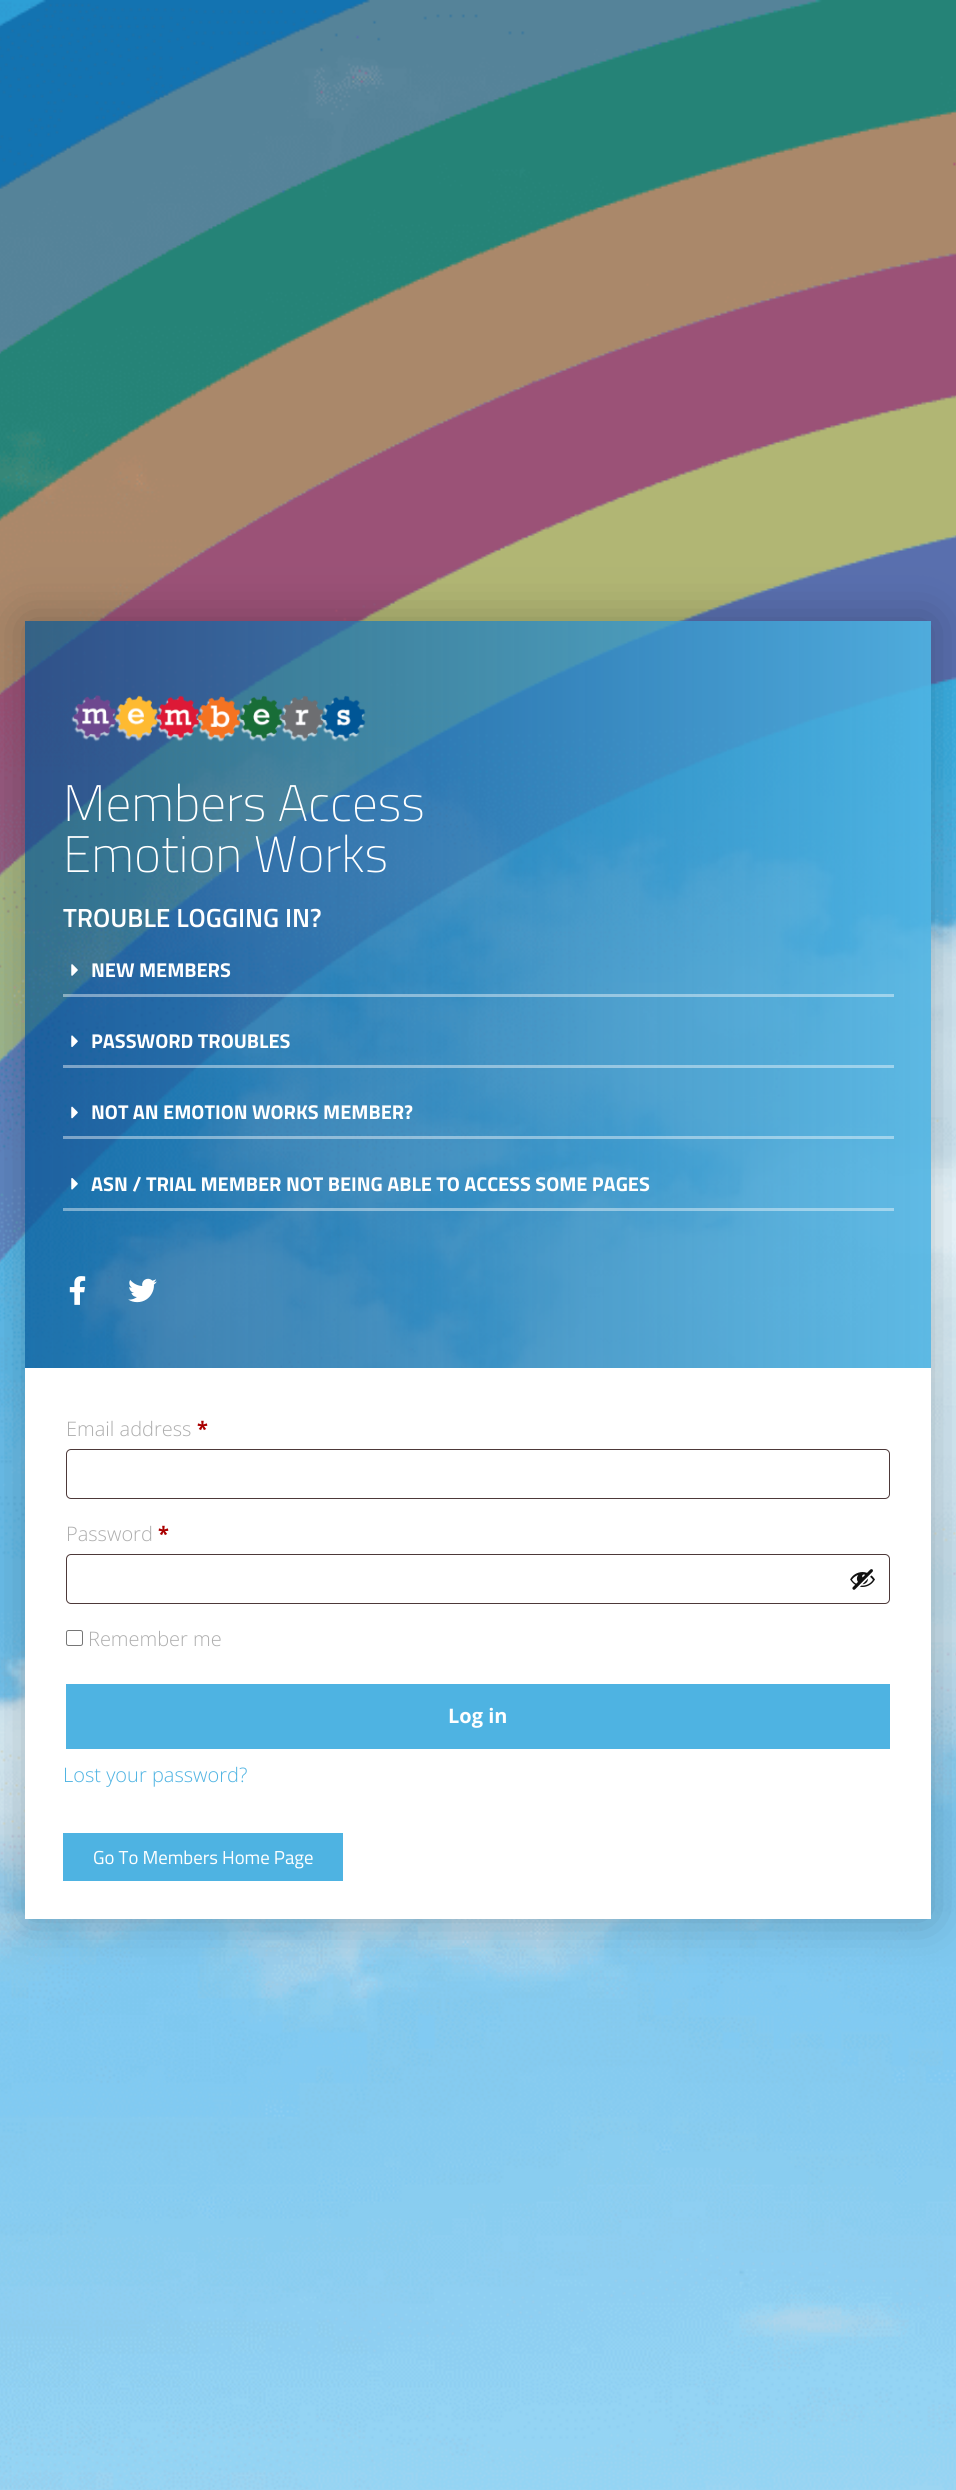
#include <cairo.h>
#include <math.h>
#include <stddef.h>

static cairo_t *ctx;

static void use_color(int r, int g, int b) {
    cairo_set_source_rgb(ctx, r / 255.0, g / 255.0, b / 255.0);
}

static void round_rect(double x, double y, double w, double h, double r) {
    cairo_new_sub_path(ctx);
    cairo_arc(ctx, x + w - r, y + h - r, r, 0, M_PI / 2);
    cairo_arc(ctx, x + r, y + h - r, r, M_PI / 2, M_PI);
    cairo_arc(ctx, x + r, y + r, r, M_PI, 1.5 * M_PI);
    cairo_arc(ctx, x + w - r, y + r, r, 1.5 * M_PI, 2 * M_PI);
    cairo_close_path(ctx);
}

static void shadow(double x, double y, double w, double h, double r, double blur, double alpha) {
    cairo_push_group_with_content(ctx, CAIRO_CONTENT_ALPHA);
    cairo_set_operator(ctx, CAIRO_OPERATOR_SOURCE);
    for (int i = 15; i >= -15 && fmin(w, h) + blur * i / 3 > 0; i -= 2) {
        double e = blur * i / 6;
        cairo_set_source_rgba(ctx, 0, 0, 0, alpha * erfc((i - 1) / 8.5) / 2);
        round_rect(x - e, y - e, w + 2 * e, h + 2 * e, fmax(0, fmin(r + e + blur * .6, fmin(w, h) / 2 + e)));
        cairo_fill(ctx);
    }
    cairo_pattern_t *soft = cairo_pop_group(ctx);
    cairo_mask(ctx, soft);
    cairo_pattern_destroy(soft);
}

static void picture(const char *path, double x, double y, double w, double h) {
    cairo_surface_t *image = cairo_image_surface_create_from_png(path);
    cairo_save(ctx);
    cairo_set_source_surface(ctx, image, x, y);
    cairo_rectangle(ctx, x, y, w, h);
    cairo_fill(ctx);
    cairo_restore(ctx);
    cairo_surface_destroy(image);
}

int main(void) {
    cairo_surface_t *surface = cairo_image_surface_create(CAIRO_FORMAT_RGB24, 956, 2490);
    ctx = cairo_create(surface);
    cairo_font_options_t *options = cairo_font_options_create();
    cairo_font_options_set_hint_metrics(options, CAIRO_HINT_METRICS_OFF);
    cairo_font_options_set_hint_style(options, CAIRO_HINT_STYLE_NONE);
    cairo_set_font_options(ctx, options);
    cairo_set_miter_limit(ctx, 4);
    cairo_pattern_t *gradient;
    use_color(255, 255, 255);
    cairo_paint(ctx);
    picture("img1.png", 0, 0, 956, 2490);
    cairo_save(ctx);
    cairo_set_fill_rule(ctx, CAIRO_FILL_RULE_EVEN_ODD);
    cairo_new_path(ctx);
    cairo_move_to(ctx, 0, 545);
    cairo_line_to(ctx, 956, 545);
    cairo_line_to(ctx, 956, 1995);
    cairo_line_to(ctx, 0, 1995);
    cairo_close_path(ctx);
    cairo_move_to(ctx, 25, 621);
    cairo_line_to(ctx, 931, 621);
    cairo_line_to(ctx, 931, 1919);
    cairo_line_to(ctx, 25, 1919);
    cairo_close_path(ctx);
    cairo_clip(ctx);
    use_color(0, 0, 0);
    shadow(25, 621, 906, 1298, 0, 25, 0.24);
    cairo_restore(ctx);
    gradient = cairo_pattern_create_linear(931, 994, 25, 994);
    cairo_pattern_add_color_stop_rgba(gradient, 0, 0.306, 0.702, 0.886, 0.89);
    cairo_pattern_add_color_stop_rgba(gradient, 1, 0, 0.318, 0.569, 0.69);
    cairo_set_source(ctx, gradient);
    cairo_pattern_destroy(gradient);
    cairo_rectangle(ctx, 25, 621, 906, 747);
    cairo_fill(ctx);
    picture("img2.png", 71, 695, 295, 47);
    cairo_select_font_face(ctx, "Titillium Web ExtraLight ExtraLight", CAIRO_FONT_SLANT_NORMAL, CAIRO_FONT_WEIGHT_NORMAL);
    cairo_set_font_size(ctx, 51.25);
    use_color(255, 255, 255);
    cairo_move_to(ctx, 63, 821);
    cairo_show_text(ctx, "Members Access");
    cairo_move_to(ctx, 63, 872);
    cairo_show_text(ctx, "Emotion Works");
    cairo_select_font_face(ctx, "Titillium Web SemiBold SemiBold", CAIRO_FONT_SLANT_NORMAL, CAIRO_FONT_WEIGHT_NORMAL);
    cairo_set_font_size(ctx, 26.25);
    cairo_move_to(ctx, 63, 927);
    cairo_show_text(ctx, "TROUBLE LOGGING IN?");
    cairo_set_source_rgba(ctx, 1, 1, 1, 0.42);
    cairo_rectangle(ctx, 63, 994, 831, 3);
    cairo_fill(ctx);
    picture("img3.png", 71, 964, 7, 12);
    cairo_select_font_face(ctx, "Titillium Web", CAIRO_FONT_SLANT_NORMAL, CAIRO_FONT_WEIGHT_BOLD);
    cairo_set_font_size(ctx, 20);
    use_color(255, 255, 255);
    cairo_move_to(ctx, 91, 977);
    cairo_show_text(ctx, "NEW MEMBERS");
    cairo_set_source_rgba(ctx, 1, 1, 1, 0.42);
    cairo_rectangle(ctx, 63, 1065, 831, 3);
    cairo_fill(ctx);
    picture("img4.png", 71, 1035, 7, 12);
    use_color(255, 255, 255);
    cairo_move_to(ctx, 91, 1048);
    cairo_show_text(ctx, "PASSWORD TROUBLES");
    cairo_set_source_rgba(ctx, 1, 1, 1, 0.42);
    cairo_rectangle(ctx, 63, 1136, 831, 3);
    cairo_fill(ctx);
    picture("img5.png", 71, 1106, 7, 13);
    use_color(255, 255, 255);
    cairo_move_to(ctx, 91, 1119);
    cairo_show_text(ctx, "NOT AN EMOTION WORKS MEMBER?");
    cairo_set_source_rgba(ctx, 1, 1, 1, 0.42);
    cairo_rectangle(ctx, 63, 1208, 831, 3);
    cairo_fill(ctx);
    picture("img6.png", 71, 1178, 7, 12);
    use_color(255, 255, 255);
    cairo_move_to(ctx, 91, 1191);
    cairo_show_text(ctx, "ASN / TRIAL MEMBER NOT BEING ABLE TO ACCESS SOME PAGES");
    picture("img7.png", 69, 1276, 17, 29);
    picture("img8.png", 128, 1278, 29, 25);
    cairo_rectangle(ctx, 25, 1368, 906, 551);
    cairo_fill(ctx);
    cairo_select_font_face(ctx, "Open Sans Light", CAIRO_FONT_SLANT_NORMAL, CAIRO_FONT_WEIGHT_NORMAL);
    use_color(173, 173, 173);
    cairo_move_to(ctx, 66, 1436);
    cairo_show_text(ctx, "Email address");
    cairo_select_font_face(ctx, "Open Sans", CAIRO_FONT_SLANT_NORMAL, CAIRO_FONT_WEIGHT_BOLD);
    use_color(170, 0, 0);
    cairo_move_to(ctx, 197, 1436);
    cairo_show_text(ctx, "*");
    round_rect(66.5, 1449.5, 823, 49, 4.5);
    use_color(77, 57, 57);
    cairo_set_line_width(ctx, 1);
    cairo_stroke(ctx);
    cairo_select_font_face(ctx, "Open Sans Light", CAIRO_FONT_SLANT_NORMAL, CAIRO_FONT_WEIGHT_NORMAL);
    use_color(173, 173, 173);
    cairo_move_to(ctx, 66, 1541);
    cairo_show_text(ctx, "Password");
    cairo_select_font_face(ctx, "Open Sans", CAIRO_FONT_SLANT_NORMAL, CAIRO_FONT_WEIGHT_BOLD);
    use_color(170, 0, 0);
    cairo_move_to(ctx, 158, 1541);
    cairo_show_text(ctx, "*");
    round_rect(66.5, 1554.5, 823, 49, 4.5);
    use_color(77, 57, 57);
    cairo_stroke(ctx);
    picture("img9.png", 850, 1569, 25, 21);
    round_rect(66.5, 1630.5, 16, 15, 2);
    use_color(118, 118, 118);
    cairo_stroke(ctx);
    cairo_select_font_face(ctx, "Open Sans Light", CAIRO_FONT_SLANT_NORMAL, CAIRO_FONT_WEIGHT_NORMAL);
    use_color(173, 173, 173);
    cairo_move_to(ctx, 88, 1646);
    cairo_show_text(ctx, "Remember me");
    use_color(78, 179, 226);
    cairo_rectangle(ctx, 66, 1684, 824, 65);
    cairo_fill(ctx);
    cairo_select_font_face(ctx, "Open Sans", CAIRO_FONT_SLANT_NORMAL, CAIRO_FONT_WEIGHT_BOLD);
    use_color(255, 255, 255);
    cairo_move_to(ctx, 448, 1723);
    cairo_show_text(ctx, "Log in");
    cairo_select_font_face(ctx, "Open Sans Light", CAIRO_FONT_SLANT_NORMAL, CAIRO_FONT_WEIGHT_NORMAL);
    use_color(78, 179, 226);
    cairo_move_to(ctx, 63, 1782);
    cairo_show_text(ctx, "Lost your password?");
    cairo_rectangle(ctx, 63, 1833, 280, 48);
    cairo_fill(ctx);
    cairo_select_font_face(ctx, "Titillium Web", CAIRO_FONT_SLANT_NORMAL, CAIRO_FONT_WEIGHT_NORMAL);
    cairo_set_font_size(ctx, 18.75);
    use_color(255, 255, 255);
    cairo_move_to(ctx, 93, 1864);
    cairo_show_text(ctx, "Go To Members Home Page");
    cairo_surface_write_to_png(surface, "result.png");
    cairo_font_options_destroy(options);
    cairo_destroy(ctx);
    cairo_surface_destroy(surface);
    return 0;
}
